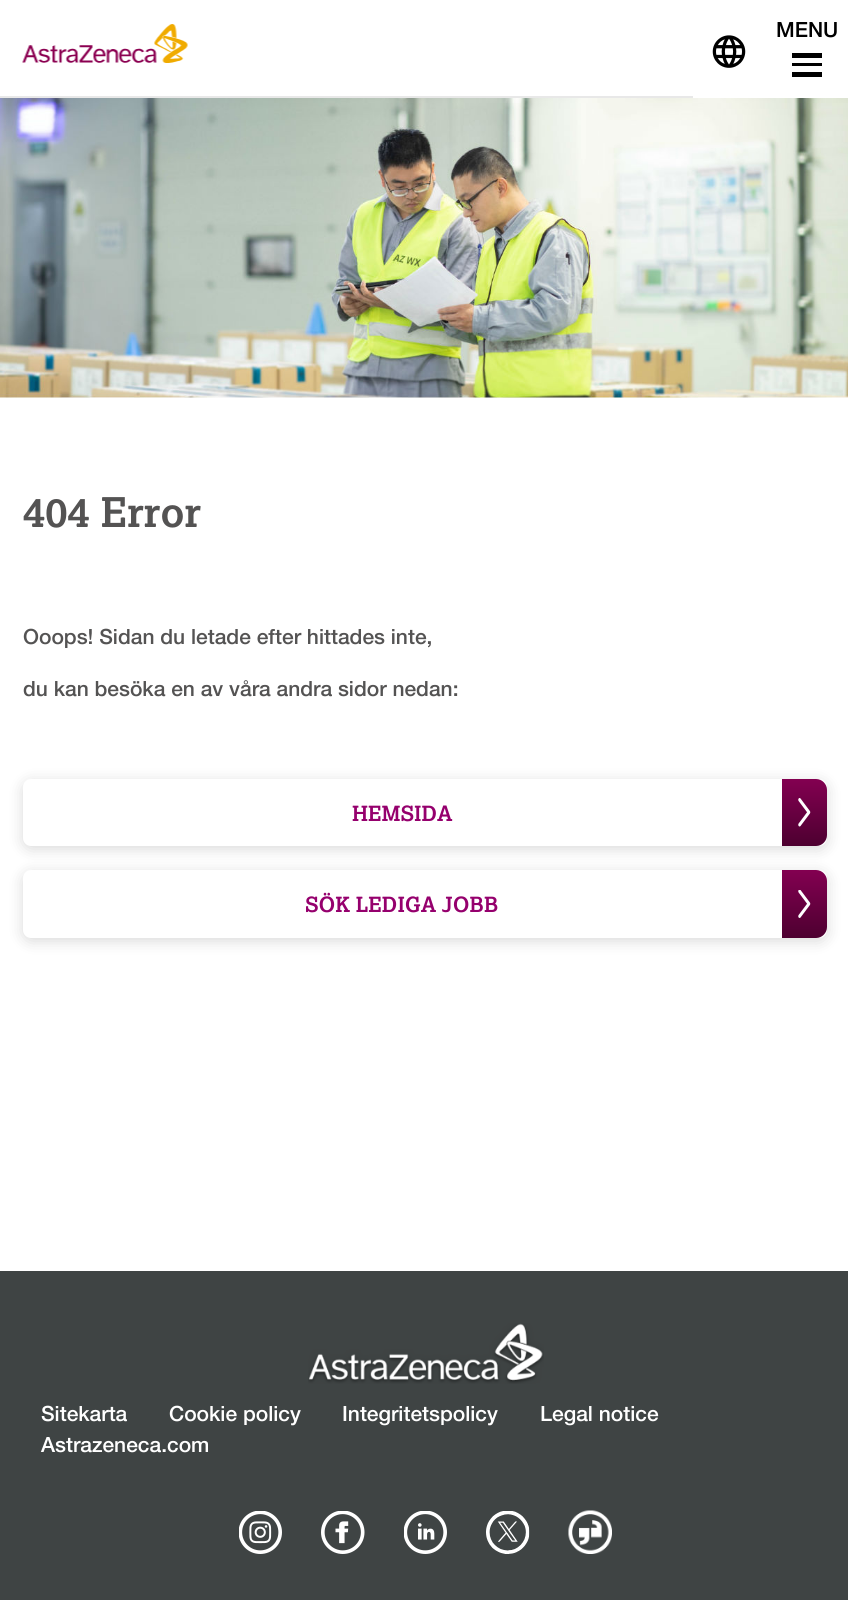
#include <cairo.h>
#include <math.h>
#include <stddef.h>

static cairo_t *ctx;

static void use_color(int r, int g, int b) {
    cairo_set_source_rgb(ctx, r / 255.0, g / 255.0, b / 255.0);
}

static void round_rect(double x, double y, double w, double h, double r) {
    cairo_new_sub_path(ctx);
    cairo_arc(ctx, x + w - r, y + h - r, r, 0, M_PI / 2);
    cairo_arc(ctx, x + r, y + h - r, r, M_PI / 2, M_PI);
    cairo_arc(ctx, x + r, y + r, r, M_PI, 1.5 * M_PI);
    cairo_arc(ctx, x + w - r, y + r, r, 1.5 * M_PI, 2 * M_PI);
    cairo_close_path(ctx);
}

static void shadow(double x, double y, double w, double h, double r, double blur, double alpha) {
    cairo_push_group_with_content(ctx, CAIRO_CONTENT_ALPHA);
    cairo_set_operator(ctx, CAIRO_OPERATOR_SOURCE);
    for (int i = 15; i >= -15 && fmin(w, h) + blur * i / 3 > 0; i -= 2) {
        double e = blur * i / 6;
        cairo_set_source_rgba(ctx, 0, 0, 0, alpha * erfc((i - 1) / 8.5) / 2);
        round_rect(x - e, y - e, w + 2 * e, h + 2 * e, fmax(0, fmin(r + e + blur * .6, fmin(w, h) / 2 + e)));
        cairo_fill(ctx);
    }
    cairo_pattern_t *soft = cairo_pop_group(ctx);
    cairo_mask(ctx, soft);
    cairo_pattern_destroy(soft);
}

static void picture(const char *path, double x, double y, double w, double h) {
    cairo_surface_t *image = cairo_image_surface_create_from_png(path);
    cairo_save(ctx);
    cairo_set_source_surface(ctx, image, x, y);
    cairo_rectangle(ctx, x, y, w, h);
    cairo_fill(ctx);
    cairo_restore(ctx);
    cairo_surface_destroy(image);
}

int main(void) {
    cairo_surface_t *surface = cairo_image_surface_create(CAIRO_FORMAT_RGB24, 848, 1600);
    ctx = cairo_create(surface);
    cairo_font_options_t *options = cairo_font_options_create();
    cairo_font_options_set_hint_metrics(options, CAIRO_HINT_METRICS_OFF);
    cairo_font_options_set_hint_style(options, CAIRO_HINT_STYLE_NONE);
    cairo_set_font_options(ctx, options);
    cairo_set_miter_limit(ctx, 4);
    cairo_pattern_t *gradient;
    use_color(255, 255, 255);
    cairo_paint(ctx);
    picture("img1.png", 0, 98, 848, 300);
    use_color(232, 232, 232);
    cairo_rectangle(ctx, 0, 96, 693, 2);
    cairo_fill(ctx);
    picture("img2.png", 22, 24, 166, 39);
    cairo_select_font_face(ctx, "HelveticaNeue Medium", CAIRO_FONT_SLANT_NORMAL, CAIRO_FONT_WEIGHT_NORMAL);
    cairo_set_font_size(ctx, 21);
    use_color(0, 0, 0);
    cairo_move_to(ctx, 776, 37);
    cairo_show_text(ctx, "MENU");
    cairo_rectangle(ctx, 792, 53, 30, 5);
    cairo_fill(ctx);
    cairo_rectangle(ctx, 792, 63, 30, 3);
    cairo_fill(ctx);
    cairo_rectangle(ctx, 792, 72, 30, 5);
    cairo_fill(ctx);
    picture("img3.png", 712, 35, 34, 33);
    cairo_select_font_face(ctx, "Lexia", CAIRO_FONT_SLANT_NORMAL, CAIRO_FONT_WEIGHT_BOLD);
    cairo_set_font_size(ctx, 41);
    use_color(84, 83, 83);
    cairo_move_to(ctx, 23, 527);
    cairo_show_text(ctx, "404 Error");
    cairo_select_font_face(ctx, "HelveticaNeue Medium", CAIRO_FONT_SLANT_NORMAL, CAIRO_FONT_WEIGHT_NORMAL);
    cairo_set_font_size(ctx, 21);
    cairo_move_to(ctx, 23, 644);
    cairo_show_text(ctx, "Ooops! Sidan du letade efter hittades inte,");
    cairo_move_to(ctx, 23, 696);
    cairo_show_text(ctx, "du kan besöka en av våra andra sidor nedan:");
    use_color(0, 0, 0);
    shadow(23, 782, 804, 67, 8, 7.5, 0.15);
    use_color(255, 255, 255);
    round_rect(23, 779, 804, 67, 8);
    cairo_fill(ctx);
    cairo_select_font_face(ctx, "Lexia", CAIRO_FONT_SLANT_NORMAL, CAIRO_FONT_WEIGHT_BOLD);
    use_color(149, 0, 109);
    cairo_move_to(ctx, 352, 821);
    cairo_show_text(ctx, "HEMSIDA");
    gradient = cairo_pattern_create_linear(804, 779, 804, 846);
    cairo_pattern_add_color_stop_rgba(gradient, 0, 0.514, 0, 0.318, 1);
    cairo_pattern_add_color_stop_rgba(gradient, 1, 0.302, 0, 0.188, 1);
    cairo_set_source(ctx, gradient);
    cairo_pattern_destroy(gradient);
    cairo_new_path(ctx);
    cairo_move_to(ctx, 782, 779);
    cairo_line_to(ctx, 816, 779);
    cairo_curve_to(ctx, 822, 779, 827, 784, 827, 790);
    cairo_line_to(ctx, 827, 835);
    cairo_curve_to(ctx, 827, 841, 822, 846, 816, 846);
    cairo_line_to(ctx, 782, 846);
    cairo_close_path(ctx);
    cairo_fill(ctx);
    picture("img4.png", 798, 798, 13, 29);
    use_color(0, 0, 0);
    shadow(23, 873, 804, 68, 8, 7.5, 0.15);
    use_color(255, 255, 255);
    round_rect(23, 870, 804, 68, 8);
    cairo_fill(ctx);
    use_color(149, 0, 109);
    cairo_move_to(ctx, 305, 912);
    cairo_show_text(ctx, "SÖK LEDIGA JOBB");
    gradient = cairo_pattern_create_linear(804, 870, 804, 938);
    cairo_pattern_add_color_stop_rgba(gradient, 0, 0.514, 0, 0.318, 1);
    cairo_pattern_add_color_stop_rgba(gradient, 1, 0.302, 0, 0.188, 1);
    cairo_set_source(ctx, gradient);
    cairo_pattern_destroy(gradient);
    cairo_new_path(ctx);
    cairo_move_to(ctx, 782, 870);
    cairo_line_to(ctx, 816, 870);
    cairo_curve_to(ctx, 822, 870, 827, 875, 827, 881);
    cairo_line_to(ctx, 827, 927);
    cairo_curve_to(ctx, 827, 933, 822, 938, 816, 938);
    cairo_line_to(ctx, 782, 938);
    cairo_close_path(ctx);
    cairo_fill(ctx);
    picture("img5.png", 798, 890, 13, 28);
    use_color(63, 68, 68);
    cairo_rectangle(ctx, 0, 1271, 848, 329);
    cairo_fill(ctx);
    picture("img6.png", 308, 1323, 236, 61);
    cairo_select_font_face(ctx, "HelveticaNeue Medium", CAIRO_FONT_SLANT_NORMAL, CAIRO_FONT_WEIGHT_NORMAL);
    use_color(255, 255, 255);
    cairo_move_to(ctx, 41, 1421);
    cairo_show_text(ctx, "Sitekarta");
    cairo_move_to(ctx, 169, 1421);
    cairo_show_text(ctx, "Cookie policy");
    cairo_move_to(ctx, 342, 1421);
    cairo_show_text(ctx, "Integritetspolicy");
    cairo_move_to(ctx, 540, 1421);
    cairo_show_text(ctx, "Legal notice");
    cairo_move_to(ctx, 41, 1452);
    cairo_show_text(ctx, "Astrazeneca.com");
    picture("img7.png", 239, 1511, 43, 43);
    picture("img8.png", 321, 1511, 44, 43);
    picture("img9.png", 404, 1511, 43, 43);
    picture("img10.png", 486, 1511, 44, 43);
    picture("img11.png", 568, 1510, 44, 44);
    cairo_surface_write_to_png(surface, "result.png");
    cairo_font_options_destroy(options);
    cairo_destroy(ctx);
    cairo_surface_destroy(surface);
    return 0;
}
